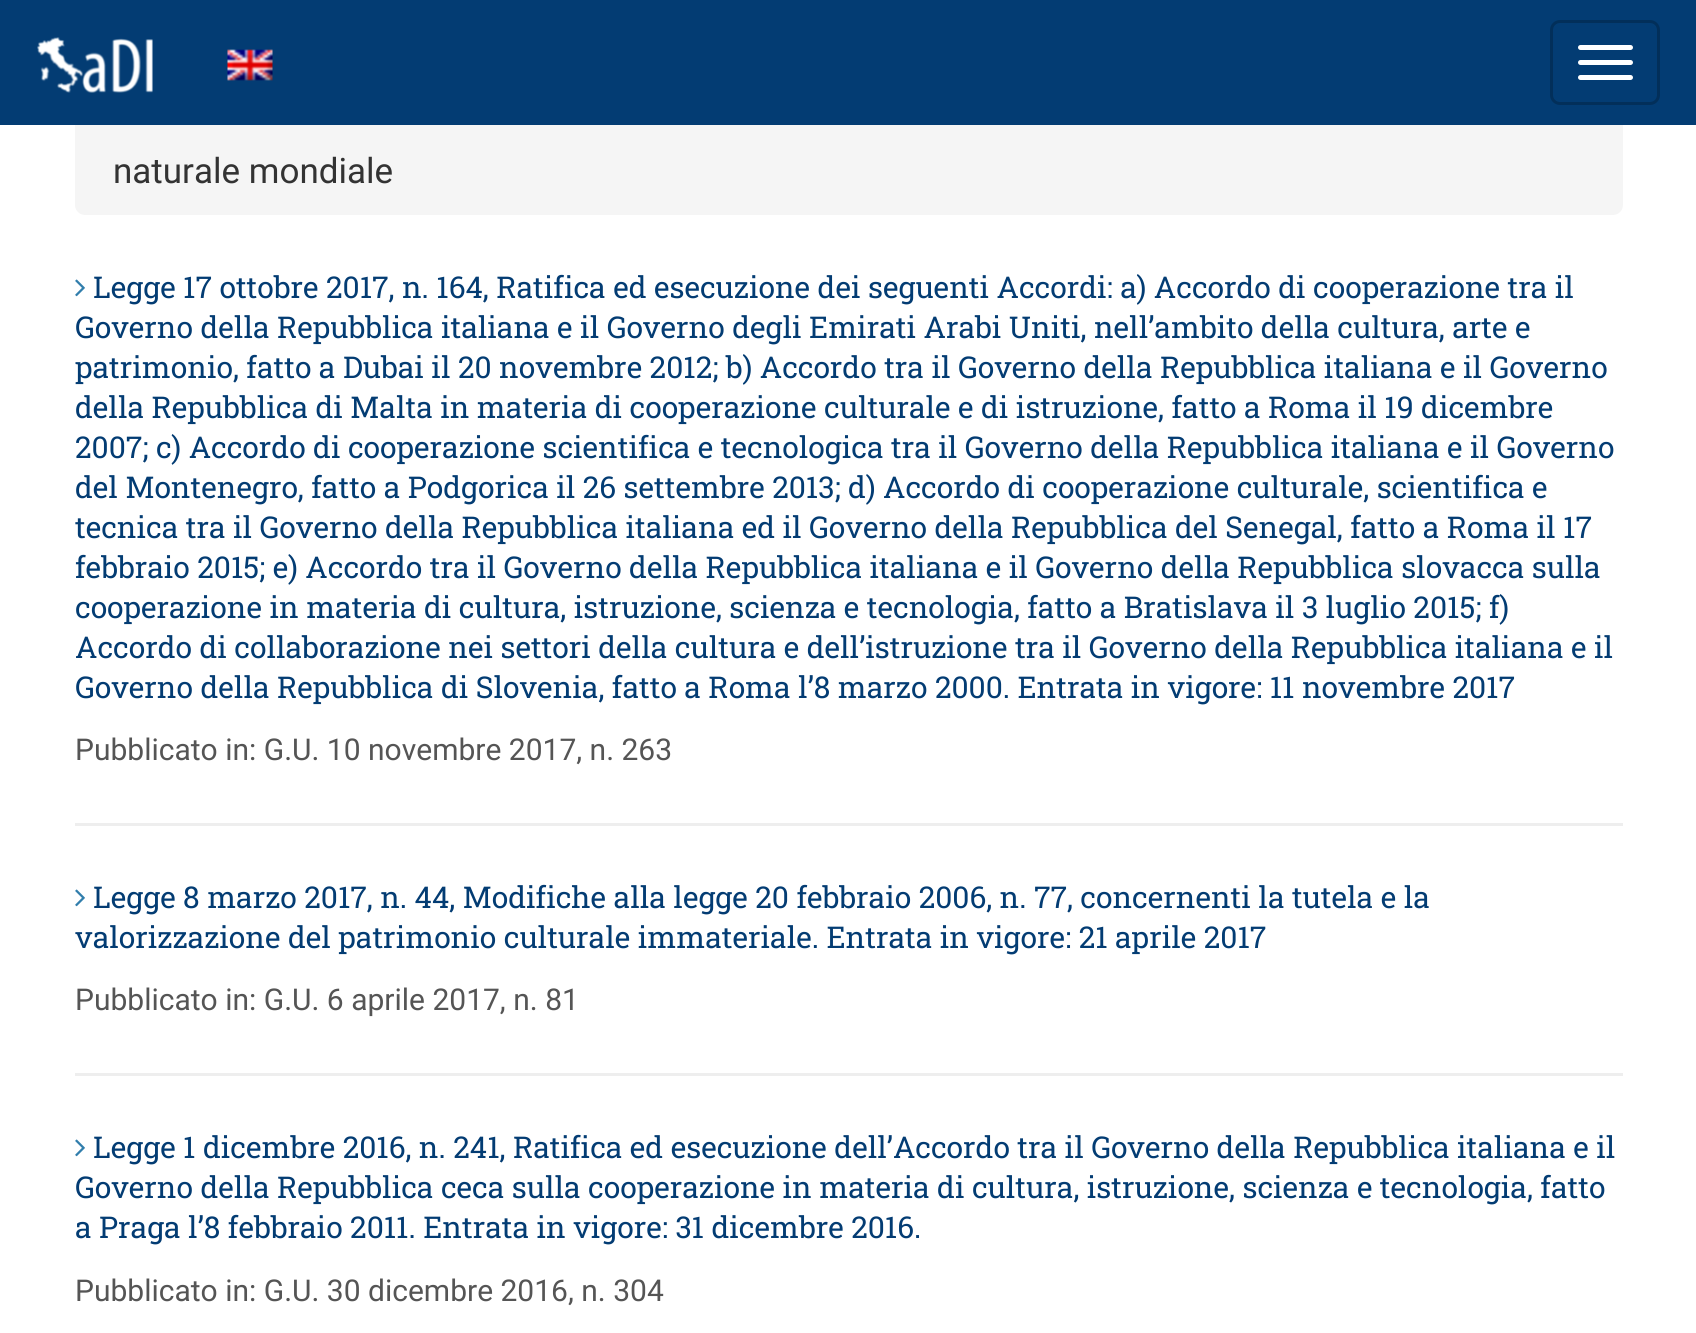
#include <cairo.h>
#include <math.h>
#include <stddef.h>

static cairo_t *ctx;

static void use_color(int r, int g, int b) {
    cairo_set_source_rgb(ctx, r / 255.0, g / 255.0, b / 255.0);
}

static void round_rect(double x, double y, double w, double h, double r) {
    cairo_new_sub_path(ctx);
    cairo_arc(ctx, x + w - r, y + h - r, r, 0, M_PI / 2);
    cairo_arc(ctx, x + r, y + h - r, r, M_PI / 2, M_PI);
    cairo_arc(ctx, x + r, y + r, r, M_PI, 1.5 * M_PI);
    cairo_arc(ctx, x + w - r, y + r, r, 1.5 * M_PI, 2 * M_PI);
    cairo_close_path(ctx);
}

static void picture(const char *path, double x, double y, double w, double h) {
    cairo_surface_t *image = cairo_image_surface_create_from_png(path);
    cairo_save(ctx);
    cairo_set_source_surface(ctx, image, x, y);
    cairo_rectangle(ctx, x, y, w, h);
    cairo_fill(ctx);
    cairo_restore(ctx);
    cairo_surface_destroy(image);
}

int main(void) {
    cairo_surface_t *surface = cairo_image_surface_create(CAIRO_FORMAT_RGB24, 1696, 1333);
    ctx = cairo_create(surface);
    cairo_font_options_t *options = cairo_font_options_create();
    cairo_font_options_set_hint_metrics(options, CAIRO_HINT_METRICS_OFF);
    cairo_font_options_set_hint_style(options, CAIRO_HINT_STYLE_NONE);
    cairo_set_font_options(ctx, options);
    cairo_set_miter_limit(ctx, 4);
    use_color(255, 255, 255);
    cairo_paint(ctx);
    use_color(245, 245, 245);
    round_rect(75, 75, 1548, 140, 10);
    cairo_fill(ctx);
    use_color(3, 60, 115);
    cairo_rectangle(ctx, 0, 0, 1696, 125);
    cairo_fill(ctx);
    picture("img1.png", 37, 37, 116, 56);
    picture("img2.png", 227, 49, 46, 32);
    round_rect(1551.5, 21.5, 107, 82, 8.5);
    use_color(2, 47, 90);
    cairo_set_line_width(ctx, 3);
    cairo_stroke(ctx);
    use_color(255, 255, 255);
    round_rect(1578, 45, 55, 5, 2.5);
    cairo_fill(ctx);
    round_rect(1578, 60, 55, 5, 2.5);
    cairo_fill(ctx);
    round_rect(1578, 75, 55, 5, 2.5);
    cairo_fill(ctx);
    cairo_select_font_face(ctx, "Roboto", CAIRO_FONT_SLANT_NORMAL, CAIRO_FONT_WEIGHT_NORMAL);
    cairo_set_font_size(ctx, 35);
    use_color(51, 51, 51);
    cairo_move_to(ctx, 113, 183);
    cairo_show_text(ctx, "naturale mondiale");
    picture("img3.png", 75, 279, 10, 18);
    cairo_select_font_face(ctx, "Roboto Slab", CAIRO_FONT_SLANT_NORMAL, CAIRO_FONT_WEIGHT_NORMAL);
    cairo_set_font_size(ctx, 30);
    use_color(3, 60, 115);
    cairo_move_to(ctx, 93, 298);
    cairo_show_text(ctx, "Legge 17 ottobre 2017, n. 164, Ratifica ed esecuzione dei seguenti Accordi: a) Accordo di cooperazione tra il");
    cairo_move_to(ctx, 75, 338);
    cairo_show_text(ctx, "Governo della Repubblica italiana e il Governo degli Emirati Arabi Uniti, nell’ambito della cultura, arte e");
    cairo_move_to(ctx, 75, 378);
    cairo_show_text(ctx, "patrimonio, fatto a Dubai il 20 novembre 2012; b) Accordo tra il Governo della Repubblica italiana e il Governo");
    cairo_move_to(ctx, 75, 418);
    cairo_show_text(ctx, "della Repubblica di Malta in materia di cooperazione culturale e di istruzione, fatto a Roma il 19 dicembre");
    cairo_move_to(ctx, 75, 458);
    cairo_show_text(ctx, "2007; c) Accordo di cooperazione scientifica e tecnologica tra il Governo della Repubblica italiana e il Governo");
    cairo_move_to(ctx, 75, 498);
    cairo_show_text(ctx, "del Montenegro, fatto a Podgorica il 26 settembre 2013; d) Accordo di cooperazione culturale, scientifica e");
    cairo_move_to(ctx, 75, 538);
    cairo_show_text(ctx, "tecnica tra il Governo della Repubblica italiana ed il Governo della Repubblica del Senegal, fatto a Roma il 17");
    cairo_move_to(ctx, 75, 578);
    cairo_show_text(ctx, "febbraio 2015; e) Accordo tra il Governo della Repubblica italiana e il Governo della Repubblica slovacca sulla");
    cairo_move_to(ctx, 75, 618);
    cairo_show_text(ctx, "cooperazione in materia di cultura, istruzione, scienza e tecnologia, fatto a Bratislava il 3 luglio 2015; f)");
    cairo_move_to(ctx, 75, 658);
    cairo_show_text(ctx, "Accordo di collaborazione nei settori della cultura e dell’istruzione tra il Governo della Repubblica italiana e il");
    cairo_move_to(ctx, 75, 698);
    cairo_show_text(ctx, "Governo della Repubblica di Slovenia, fatto a Roma l’8 marzo 2000. Entrata in vigore: 11 novembre 2017");
    cairo_select_font_face(ctx, "Roboto", CAIRO_FONT_SLANT_NORMAL, CAIRO_FONT_WEIGHT_NORMAL);
    use_color(85, 85, 85);
    cairo_move_to(ctx, 75, 760);
    cairo_show_text(ctx, "Pubblicato in: G.U. 10 novembre 2017, n. 263");
    use_color(238, 238, 238);
    cairo_rectangle(ctx, 75, 823, 1548, 3);
    cairo_fill(ctx);
    picture("img3.png", 75, 889, 10, 18);
    cairo_select_font_face(ctx, "Roboto Slab", CAIRO_FONT_SLANT_NORMAL, CAIRO_FONT_WEIGHT_NORMAL);
    use_color(3, 60, 115);
    cairo_move_to(ctx, 93, 908);
    cairo_show_text(ctx, "Legge 8 marzo 2017, n. 44, Modifiche alla legge 20 febbraio 2006, n. 77, concernenti la tutela e la");
    cairo_move_to(ctx, 75, 948);
    cairo_show_text(ctx, "valorizzazione del patrimonio culturale immateriale. Entrata in vigore: 21 aprile 2017");
    cairo_select_font_face(ctx, "Roboto", CAIRO_FONT_SLANT_NORMAL, CAIRO_FONT_WEIGHT_NORMAL);
    use_color(85, 85, 85);
    cairo_move_to(ctx, 75, 1010);
    cairo_show_text(ctx, "Pubblicato in: G.U. 6 aprile 2017, n. 81");
    use_color(238, 238, 238);
    cairo_rectangle(ctx, 75, 1073, 1548, 3);
    cairo_fill(ctx);
    picture("img3.png", 75, 1139, 10, 18);
    cairo_select_font_face(ctx, "Roboto Slab", CAIRO_FONT_SLANT_NORMAL, CAIRO_FONT_WEIGHT_NORMAL);
    use_color(3, 60, 115);
    cairo_move_to(ctx, 93, 1158);
    cairo_show_text(ctx, "Legge 1 dicembre 2016, n. 241, Ratifica ed esecuzione dell’Accordo tra il Governo della Repubblica italiana e il");
    cairo_move_to(ctx, 75, 1198);
    cairo_show_text(ctx, "Governo della Repubblica ceca sulla cooperazione in materia di cultura, istruzione, scienza e tecnologia, fatto");
    cairo_move_to(ctx, 75, 1238);
    cairo_show_text(ctx, "a Praga l’8 febbraio 2011. Entrata in vigore: 31 dicembre 2016.");
    cairo_select_font_face(ctx, "Roboto", CAIRO_FONT_SLANT_NORMAL, CAIRO_FONT_WEIGHT_NORMAL);
    use_color(85, 85, 85);
    cairo_move_to(ctx, 75, 1301);
    cairo_show_text(ctx, "Pubblicato in: G.U. 30 dicembre 2016, n. 304");
    cairo_surface_write_to_png(surface, "result.png");
    cairo_font_options_destroy(options);
    cairo_destroy(ctx);
    cairo_surface_destroy(surface);
    return 0;
}
